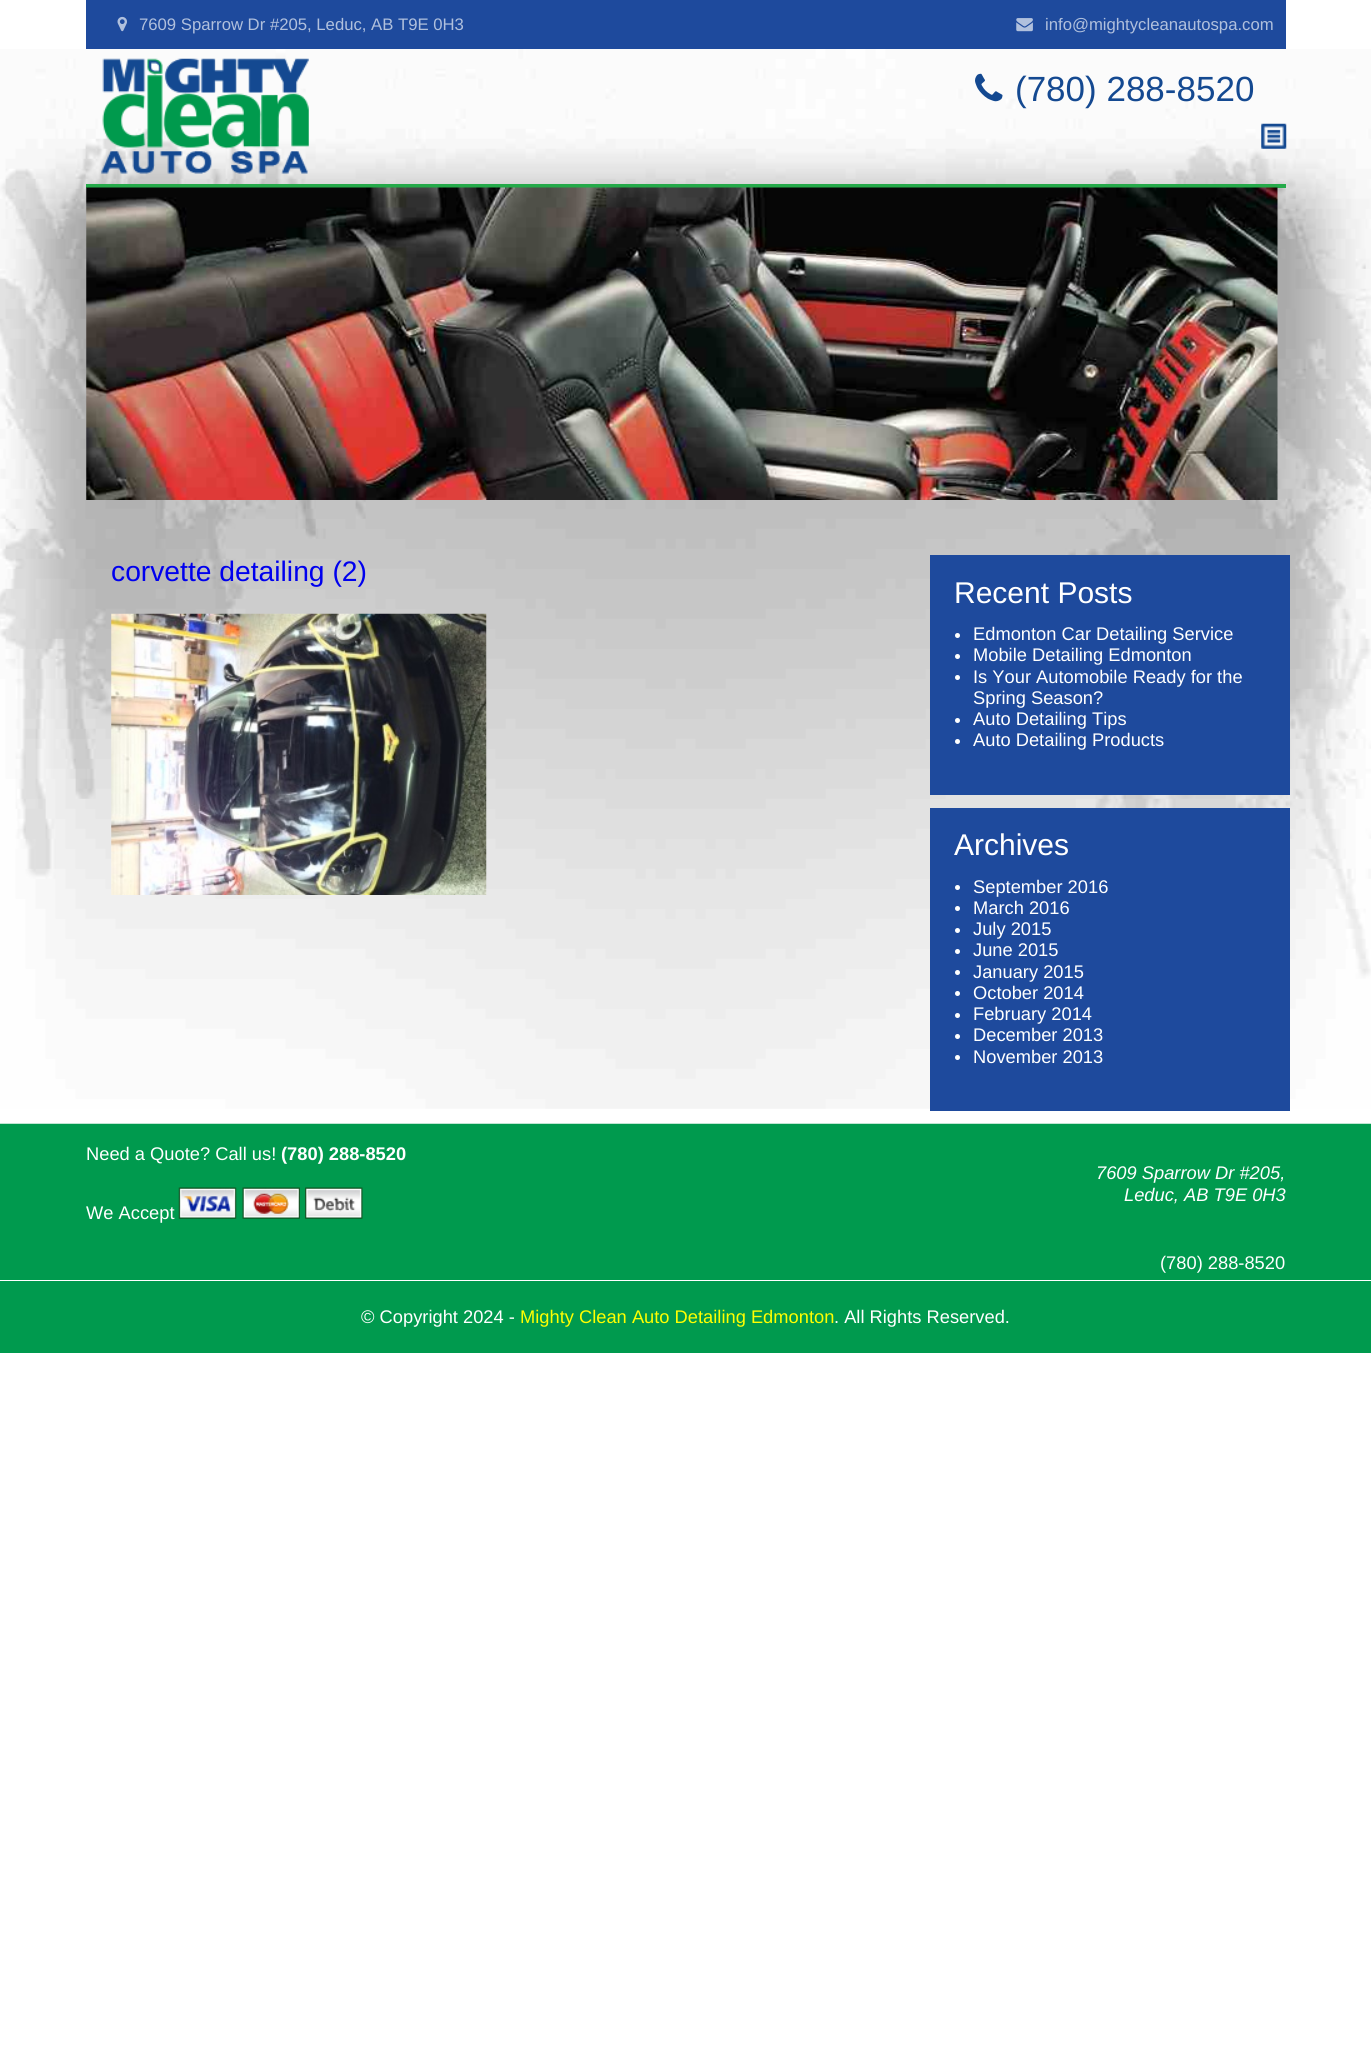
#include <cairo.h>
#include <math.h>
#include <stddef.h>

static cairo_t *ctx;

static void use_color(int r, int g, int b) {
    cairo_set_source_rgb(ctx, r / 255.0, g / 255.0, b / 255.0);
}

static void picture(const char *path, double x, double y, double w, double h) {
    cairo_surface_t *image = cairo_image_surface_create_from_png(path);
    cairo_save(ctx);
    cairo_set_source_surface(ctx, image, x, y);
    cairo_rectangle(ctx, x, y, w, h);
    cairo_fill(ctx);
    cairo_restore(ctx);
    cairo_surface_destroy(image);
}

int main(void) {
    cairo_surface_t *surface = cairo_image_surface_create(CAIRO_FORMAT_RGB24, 1371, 2050);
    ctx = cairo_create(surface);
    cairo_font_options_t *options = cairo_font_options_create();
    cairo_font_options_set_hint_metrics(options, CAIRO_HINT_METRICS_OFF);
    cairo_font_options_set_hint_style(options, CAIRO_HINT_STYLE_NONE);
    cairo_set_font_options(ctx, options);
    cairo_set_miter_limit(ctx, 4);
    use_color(255, 255, 255);
    cairo_paint(ctx);
    picture("img1.png", 0, 49, 1371, 1060);
    use_color(30, 74, 157);
    cairo_rectangle(ctx, 86, 0, 1200, 49);
    cairo_fill(ctx);
    picture("img2.png", 117, 16, 10, 16);
    cairo_select_font_face(ctx, "Liberation Sans", CAIRO_FONT_SLANT_NORMAL, CAIRO_FONT_WEIGHT_NORMAL);
    cairo_set_font_size(ctx, 16.7);
    use_color(176, 192, 221);
    cairo_move_to(ctx, 139, 30);
    cairo_show_text(ctx, "7609 Sparrow Dr #205, Leduc, AB T9E 0H3");
    picture("img3.png", 1016, 18, 17, 14);
    cairo_move_to(ctx, 1045, 30);
    cairo_show_text(ctx, "info@mightycleanautospa.com");
    use_color(37, 170, 74);
    cairo_rectangle(ctx, 86, 184, 1200, 4);
    cairo_fill(ctx);
    picture("img4.png", 101, 58, 208, 116);
    picture("img5.png", 975, 73, 28, 29);
    cairo_set_font_size(ctx, 35);
    use_color(20, 73, 145);
    cairo_move_to(ctx, 1015, 101);
    cairo_show_text(ctx, "(780) 288-8520");
    picture("img6.png", 1261, 123, 26, 26);
    picture("img7.png", 86, 187, 1192, 313);
    cairo_set_font_size(ctx, 28.25);
    use_color(0, 0, 238);
    cairo_move_to(ctx, 111, 581);
    cairo_show_text(ctx, "corvette detailing (2)");
    picture("img8.png", 111, 613, 376, 282);
    use_color(30, 74, 157);
    cairo_rectangle(ctx, 930, 555, 360, 240);
    cairo_fill(ctx);
    cairo_set_font_size(ctx, 30);
    use_color(255, 255, 255);
    cairo_move_to(ctx, 954, 603);
    cairo_show_text(ctx, "Recent Posts");
    cairo_new_path(ctx);
    cairo_arc(ctx, 957.5, 635.5, 2.5, 0, 2 * M_PI);
    cairo_fill(ctx);
    cairo_set_font_size(ctx, 18.3);
    cairo_move_to(ctx, 973, 640);
    cairo_show_text(ctx, "Edmonton Car Detailing Service");
    cairo_new_path(ctx);
    cairo_arc(ctx, 957.5, 656.5, 2.5, 0, 2 * M_PI);
    cairo_fill(ctx);
    cairo_move_to(ctx, 973, 661);
    cairo_show_text(ctx, "Mobile Detailing Edmonton");
    cairo_new_path(ctx);
    cairo_arc(ctx, 957.5, 677.5, 2.5, 0, 2 * M_PI);
    cairo_fill(ctx);
    cairo_move_to(ctx, 973, 683);
    cairo_show_text(ctx, "Is Your Automobile Ready for the");
    cairo_move_to(ctx, 973, 704);
    cairo_show_text(ctx, "Spring Season?");
    cairo_new_path(ctx);
    cairo_arc(ctx, 957.5, 720.5, 2.5, 0, 2 * M_PI);
    cairo_fill(ctx);
    cairo_move_to(ctx, 973, 725);
    cairo_show_text(ctx, "Auto Detailing Tips");
    cairo_new_path(ctx);
    cairo_arc(ctx, 957.5, 741.5, 2.5, 0, 2 * M_PI);
    cairo_fill(ctx);
    cairo_move_to(ctx, 973, 746);
    cairo_show_text(ctx, "Auto Detailing Products");
    use_color(30, 74, 157);
    cairo_rectangle(ctx, 930, 808, 360, 303);
    cairo_fill(ctx);
    cairo_set_font_size(ctx, 30);
    use_color(255, 255, 255);
    cairo_move_to(ctx, 954, 855);
    cairo_show_text(ctx, "Archives");
    cairo_new_path(ctx);
    cairo_arc(ctx, 957.5, 887.5, 2.5, 0, 2 * M_PI);
    cairo_fill(ctx);
    cairo_set_font_size(ctx, 18.3);
    cairo_move_to(ctx, 973, 893);
    cairo_show_text(ctx, "September 2016");
    cairo_new_path(ctx);
    cairo_arc(ctx, 957.5, 908.5, 2.5, 0, 2 * M_PI);
    cairo_fill(ctx);
    cairo_move_to(ctx, 973, 914);
    cairo_show_text(ctx, "March 2016");
    cairo_new_path(ctx);
    cairo_arc(ctx, 957.5, 930.5, 2.5, 0, 2 * M_PI);
    cairo_fill(ctx);
    cairo_move_to(ctx, 973, 935);
    cairo_show_text(ctx, "July 2015");
    cairo_new_path(ctx);
    cairo_arc(ctx, 957.5, 951.5, 2.5, 0, 2 * M_PI);
    cairo_fill(ctx);
    cairo_move_to(ctx, 973, 956);
    cairo_show_text(ctx, "June 2015");
    cairo_new_path(ctx);
    cairo_arc(ctx, 957.5, 972.5, 2.5, 0, 2 * M_PI);
    cairo_fill(ctx);
    cairo_move_to(ctx, 973, 978);
    cairo_show_text(ctx, "January 2015");
    cairo_new_path(ctx);
    cairo_arc(ctx, 957.5, 993.5, 2.5, 0, 2 * M_PI);
    cairo_fill(ctx);
    cairo_move_to(ctx, 973, 999);
    cairo_show_text(ctx, "October 2014");
    cairo_new_path(ctx);
    cairo_arc(ctx, 957.5, 1015.5, 2.5, 0, 2 * M_PI);
    cairo_fill(ctx);
    cairo_move_to(ctx, 973, 1020);
    cairo_show_text(ctx, "February 2014");
    cairo_new_path(ctx);
    cairo_arc(ctx, 957.5, 1036.5, 2.5, 0, 2 * M_PI);
    cairo_fill(ctx);
    cairo_move_to(ctx, 973, 1041);
    cairo_show_text(ctx, "December 2013");
    cairo_new_path(ctx);
    cairo_arc(ctx, 957.5, 1057.5, 2.5, 0, 2 * M_PI);
    cairo_fill(ctx);
    cairo_move_to(ctx, 973, 1063);
    cairo_show_text(ctx, "November 2013");
    use_color(0, 154, 78);
    cairo_rectangle(ctx, 0, 1124, 1371, 229);
    cairo_fill(ctx);
    use_color(191, 230, 211);
    cairo_rectangle(ctx, 0, 1123, 1371, 1);
    cairo_fill(ctx);
    use_color(255, 255, 255);
    cairo_move_to(ctx, 86, 1160);
    cairo_show_text(ctx, "Need a Quote? Call us!");
    cairo_select_font_face(ctx, "Liberation Sans", CAIRO_FONT_SLANT_NORMAL, CAIRO_FONT_WEIGHT_BOLD);
    cairo_move_to(ctx, 281, 1160);
    cairo_show_text(ctx, "(780) 288-8520");
    cairo_select_font_face(ctx, "Liberation Sans", CAIRO_FONT_SLANT_NORMAL, CAIRO_FONT_WEIGHT_NORMAL);
    cairo_move_to(ctx, 86, 1219);
    cairo_show_text(ctx, "We Accept");
    picture("img9.png", 178, 1187, 59, 32);
    picture("img10.png", 242, 1187, 58, 32);
    picture("img11.png", 305, 1187, 58, 32);
    cairo_select_font_face(ctx, "Liberation Sans", CAIRO_FONT_SLANT_ITALIC, CAIRO_FONT_WEIGHT_NORMAL);
    cairo_move_to(ctx, 1096, 1179);
    cairo_show_text(ctx, "7609 Sparrow Dr #205,");
    cairo_move_to(ctx, 1124, 1201);
    cairo_show_text(ctx, "Leduc, AB T9E 0H3");
    cairo_select_font_face(ctx, "Liberation Sans", CAIRO_FONT_SLANT_NORMAL, CAIRO_FONT_WEIGHT_NORMAL);
    cairo_move_to(ctx, 1160, 1269);
    cairo_show_text(ctx, "(780) 288-8520");
    cairo_rectangle(ctx, 0, 1280, 1371, 1);
    cairo_fill(ctx);
    cairo_move_to(ctx, 361, 1323);
    cairo_show_text(ctx, "© Copyright 2024 -");
    use_color(255, 255, 0);
    cairo_move_to(ctx, 520, 1323);
    cairo_show_text(ctx, "Mighty Clean Auto Detailing Edmonton");
    use_color(255, 255, 255);
    cairo_move_to(ctx, 834, 1323);
    cairo_show_text(ctx, ". All Rights Reserved.");
    cairo_surface_write_to_png(surface, "result.png");
    cairo_font_options_destroy(options);
    cairo_destroy(ctx);
    cairo_surface_destroy(surface);
    return 0;
}
